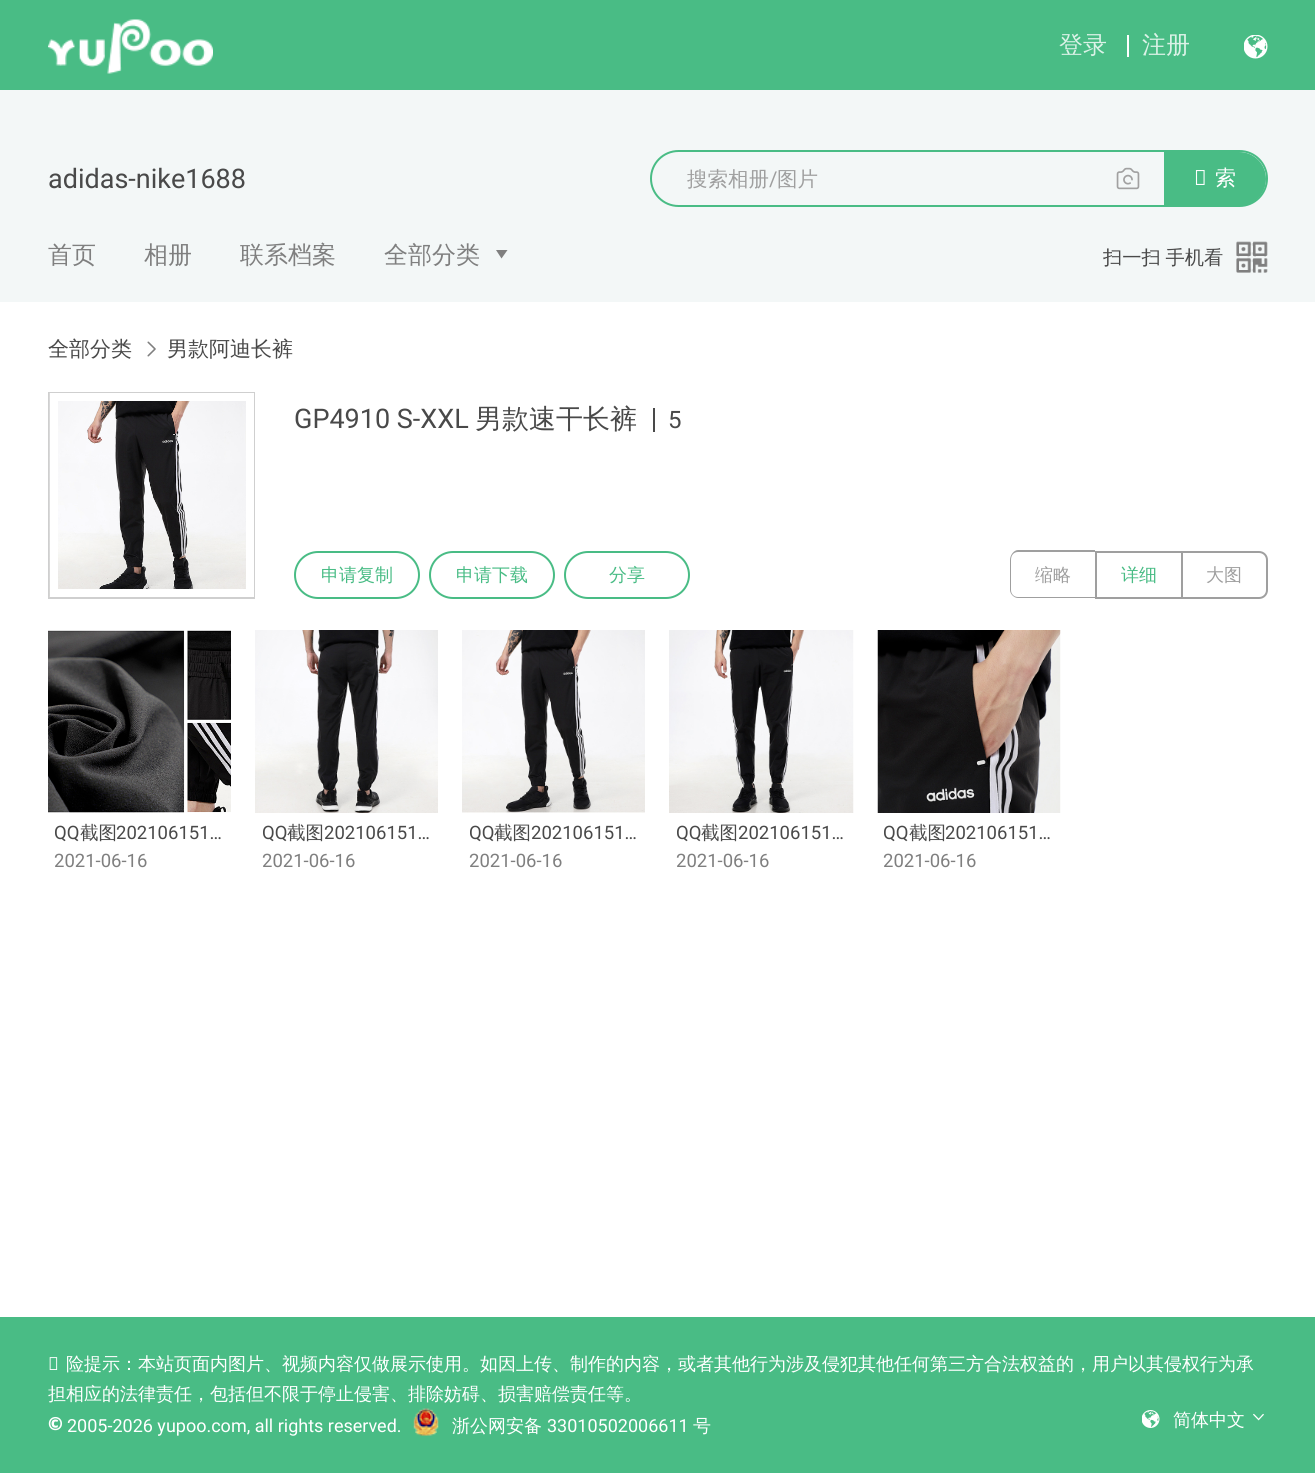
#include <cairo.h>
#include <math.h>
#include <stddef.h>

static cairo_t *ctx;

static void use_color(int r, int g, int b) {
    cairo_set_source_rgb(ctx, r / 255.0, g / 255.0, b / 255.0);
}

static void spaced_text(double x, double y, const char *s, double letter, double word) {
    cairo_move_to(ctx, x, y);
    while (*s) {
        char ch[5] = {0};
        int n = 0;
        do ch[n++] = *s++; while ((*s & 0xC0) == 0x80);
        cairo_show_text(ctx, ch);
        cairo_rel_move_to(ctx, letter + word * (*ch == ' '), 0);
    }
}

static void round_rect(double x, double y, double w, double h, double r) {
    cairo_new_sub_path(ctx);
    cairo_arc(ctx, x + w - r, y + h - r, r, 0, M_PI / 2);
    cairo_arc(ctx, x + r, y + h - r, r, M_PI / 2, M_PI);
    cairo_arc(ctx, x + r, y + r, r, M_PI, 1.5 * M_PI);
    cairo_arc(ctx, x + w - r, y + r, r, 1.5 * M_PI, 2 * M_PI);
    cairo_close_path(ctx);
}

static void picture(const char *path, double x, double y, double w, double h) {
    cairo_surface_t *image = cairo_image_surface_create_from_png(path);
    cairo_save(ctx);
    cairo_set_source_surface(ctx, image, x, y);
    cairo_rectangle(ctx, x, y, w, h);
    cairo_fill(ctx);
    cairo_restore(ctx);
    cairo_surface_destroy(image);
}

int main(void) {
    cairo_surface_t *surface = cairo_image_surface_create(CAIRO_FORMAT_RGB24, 1315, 1473);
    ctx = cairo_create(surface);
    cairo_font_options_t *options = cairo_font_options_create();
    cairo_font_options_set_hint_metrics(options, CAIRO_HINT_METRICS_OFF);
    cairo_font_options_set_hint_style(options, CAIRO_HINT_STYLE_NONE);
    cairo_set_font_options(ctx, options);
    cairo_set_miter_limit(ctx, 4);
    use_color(255, 255, 255);
    cairo_paint(ctx);
    use_color(73, 188, 133);
    cairo_rectangle(ctx, 0, 0, 1315, 90);
    cairo_fill(ctx);
    picture("img1.png", 48, 19, 165, 55);
    cairo_select_font_face(ctx, "WenQuanYi Zen Hei Medium", CAIRO_FONT_SLANT_NORMAL, CAIRO_FONT_WEIGHT_NORMAL);
    cairo_set_font_size(ctx, 24);
    use_color(219, 242, 231);
    cairo_move_to(ctx, 1059, 53);
    cairo_show_text(ctx, "登录");
    use_color(255, 255, 255);
    cairo_rectangle(ctx, 1127, 35, 2, 22);
    cairo_fill(ctx);
    use_color(219, 242, 231);
    cairo_move_to(ctx, 1142, 53);
    cairo_show_text(ctx, "注册");
    picture("img2.png", 1244, 35, 24, 24);
    use_color(243, 247, 247);
    cairo_rectangle(ctx, 0, 90, 1315, 212);
    cairo_fill(ctx);
    cairo_select_font_face(ctx, "Roboto", CAIRO_FONT_SLANT_NORMAL, CAIRO_FONT_WEIGHT_NORMAL);
    cairo_set_font_size(ctx, 27);
    use_color(73, 73, 73);
    cairo_move_to(ctx, 48, 188);
    cairo_show_text(ctx, "adidas-nike1688");
    round_rect(651, 151, 616, 55, 27.5);
    use_color(73, 188, 133);
    cairo_stroke(ctx);
    cairo_select_font_face(ctx, "WenQuanYi Zen Hei Medium", CAIRO_FONT_SLANT_NORMAL, CAIRO_FONT_WEIGHT_NORMAL);
    cairo_set_font_size(ctx, 20.5);
    use_color(159, 159, 159);
    cairo_move_to(ctx, 687, 186);
    cairo_show_text(ctx, "搜索相册");
    cairo_select_font_face(ctx, "Roboto", CAIRO_FONT_SLANT_NORMAL, CAIRO_FONT_WEIGHT_NORMAL);
    cairo_move_to(ctx, 769, 186);
    cairo_show_text(ctx, "/");
    cairo_select_font_face(ctx, "WenQuanYi Zen Hei Medium", CAIRO_FONT_SLANT_NORMAL, CAIRO_FONT_WEIGHT_NORMAL);
    cairo_move_to(ctx, 777, 186);
    cairo_show_text(ctx, "图片");
    picture("img3.png", 1116, 167, 24, 23);
    use_color(73, 188, 133);
    cairo_new_path(ctx);
    cairo_move_to(ctx, 1165, 153);
    cairo_line_to(ctx, 1239, 153);
    cairo_curve_to(ctx, 1253.5, 153, 1265, 164.5, 1265, 179);
    cairo_curve_to(ctx, 1265, 193.5, 1253.5, 205, 1239, 205);
    cairo_line_to(ctx, 1165, 205);
    cairo_close_path(ctx);
    cairo_fill_preserve(ctx);
    cairo_stroke(ctx);
    cairo_select_font_face(ctx, "Noto Sans", CAIRO_FONT_SLANT_NORMAL, CAIRO_FONT_WEIGHT_NORMAL);
    cairo_set_font_size(ctx, 21);
    use_color(255, 255, 255);
    cairo_move_to(ctx, 1194, 185);
    cairo_show_text(ctx, "搜");
    cairo_select_font_face(ctx, "WenQuanYi Zen Hei Medium", CAIRO_FONT_SLANT_NORMAL, CAIRO_FONT_WEIGHT_NORMAL);
    cairo_move_to(ctx, 1215, 185);
    cairo_show_text(ctx, "索");
    cairo_set_font_size(ctx, 24);
    use_color(127, 127, 127);
    cairo_move_to(ctx, 48, 263);
    cairo_show_text(ctx, "首页");
    cairo_move_to(ctx, 144, 263);
    cairo_show_text(ctx, "相册");
    cairo_move_to(ctx, 240, 263);
    cairo_show_text(ctx, "联系档案");
    cairo_move_to(ctx, 384, 263);
    cairo_show_text(ctx, "全部分类");
    cairo_new_path(ctx);
    cairo_move_to(ctx, 501.5, 258.5);
    cairo_line_to(ctx, 496, 250);
    cairo_line_to(ctx, 507.5, 250);
    cairo_close_path(ctx);
    cairo_fill(ctx);
    cairo_set_font_size(ctx, 19.25);
    use_color(73, 73, 73);
    spaced_text(1103, 264, "扫一扫 手机看", 0, -1);
    picture("img4.png", 1236, 241, 32, 32);
    cairo_set_font_size(ctx, 21);
    cairo_move_to(ctx, 48, 356);
    cairo_show_text(ctx, "全部分类");
    picture("img5.png", 147, 341, 9, 16);
    cairo_move_to(ctx, 167, 356);
    cairo_show_text(ctx, "男款阿迪长裤");
    cairo_rectangle(ctx, 49, 393, 205, 205);
    use_color(207, 207, 207);
    cairo_stroke(ctx);
    picture("img6.png", 49, 393, 197, 204);
    cairo_rectangle(ctx, 54, 397, 196, 196);
    use_color(255, 255, 255);
    cairo_set_line_width(ctx, 8);
    cairo_stroke(ctx);
    cairo_select_font_face(ctx, "Roboto", CAIRO_FONT_SLANT_NORMAL, CAIRO_FONT_WEIGHT_NORMAL);
    cairo_set_font_size(ctx, 27);
    use_color(73, 73, 73);
    cairo_move_to(ctx, 294, 428);
    cairo_show_text(ctx, "GP4910 S-XXL");
    cairo_select_font_face(ctx, "WenQuanYi Zen Hei Medium", CAIRO_FONT_SLANT_NORMAL, CAIRO_FONT_WEIGHT_NORMAL);
    cairo_move_to(ctx, 475, 428);
    cairo_show_text(ctx, "男款速干长裤");
    cairo_rectangle(ctx, 653, 408, 2, 24);
    cairo_fill(ctx);
    cairo_select_font_face(ctx, "Roboto", CAIRO_FONT_SLANT_NORMAL, CAIRO_FONT_WEIGHT_NORMAL);
    cairo_set_font_size(ctx, 24);
    cairo_move_to(ctx, 668, 428);
    cairo_show_text(ctx, "5");
    round_rect(295, 552, 124, 46, 23);
    use_color(73, 188, 133);
    cairo_set_line_width(ctx, 2);
    cairo_stroke(ctx);
    cairo_select_font_face(ctx, "WenQuanYi Zen Hei Medium", CAIRO_FONT_SLANT_NORMAL, CAIRO_FONT_WEIGHT_NORMAL);
    cairo_set_font_size(ctx, 18);
    cairo_move_to(ctx, 321, 581);
    cairo_show_text(ctx, "申请复制");
    round_rect(430, 552, 124, 46, 23);
    cairo_stroke(ctx);
    cairo_move_to(ctx, 456, 581);
    cairo_show_text(ctx, "申请下载");
    round_rect(565, 552, 124, 46, 23);
    cairo_stroke(ctx);
    cairo_move_to(ctx, 609, 581);
    cairo_show_text(ctx, "分享");
    use_color(159, 159, 159);
    cairo_set_fill_rule(ctx, CAIRO_FILL_RULE_EVEN_ODD);
    cairo_new_path(ctx);
    cairo_move_to(ctx, 1018, 550);
    cairo_line_to(ctx, 1095, 550);
    cairo_line_to(ctx, 1095, 598);
    cairo_line_to(ctx, 1018, 598);
    cairo_curve_to(ctx, 1014, 598, 1010, 594, 1010, 590);
    cairo_line_to(ctx, 1010, 560);
    cairo_curve_to(ctx, 1010, 555, 1014, 550, 1018, 550);
    cairo_close_path(ctx);
    cairo_move_to(ctx, 1018, 552);
    cairo_line_to(ctx, 1095, 552);
    cairo_line_to(ctx, 1095, 597);
    cairo_line_to(ctx, 1018, 597);
    cairo_curve_to(ctx, 1014, 597, 1011, 594, 1011, 590);
    cairo_line_to(ctx, 1011, 560);
    cairo_curve_to(ctx, 1011, 555, 1014, 552, 1018, 552);
    cairo_close_path(ctx);
    cairo_fill(ctx);
    cairo_move_to(ctx, 1035, 581);
    cairo_show_text(ctx, "缩略");
    cairo_rectangle(ctx, 1095, 551, 86, 2);
    cairo_fill(ctx);
    cairo_rectangle(ctx, 1095, 597, 86, 2);
    cairo_fill(ctx);
    cairo_rectangle(ctx, 1095, 551, 2, 48);
    cairo_fill(ctx);
    use_color(73, 188, 133);
    cairo_move_to(ctx, 1121, 581);
    cairo_show_text(ctx, "详细");
    cairo_new_path(ctx);
    cairo_move_to(ctx, 1182, 552);
    cairo_line_to(ctx, 1259, 552);
    cairo_curve_to(ctx, 1263.5, 552, 1267, 555.5, 1267, 560);
    cairo_line_to(ctx, 1267, 590);
    cairo_curve_to(ctx, 1267, 594.5, 1263.5, 598, 1259, 598);
    cairo_line_to(ctx, 1182, 598);
    cairo_close_path(ctx);
    use_color(159, 159, 159);
    cairo_stroke(ctx);
    cairo_move_to(ctx, 1206, 581);
    cairo_show_text(ctx, "大图");
    picture("img7.png", 48, 630, 183, 183);
    cairo_select_font_face(ctx, "Roboto", CAIRO_FONT_SLANT_NORMAL, CAIRO_FONT_WEIGHT_NORMAL);
    cairo_set_font_size(ctx, 18.5);
    use_color(73, 73, 73);
    cairo_move_to(ctx, 54, 839);
    cairo_show_text(ctx, "QQ");
    cairo_select_font_face(ctx, "WenQuanYi Zen Hei Medium", CAIRO_FONT_SLANT_NORMAL, CAIRO_FONT_WEIGHT_NORMAL);
    cairo_move_to(ctx, 80, 839);
    cairo_show_text(ctx, "截图");
    cairo_select_font_face(ctx, "Roboto", CAIRO_FONT_SLANT_NORMAL, CAIRO_FONT_WEIGHT_NORMAL);
    cairo_move_to(ctx, 116, 839);
    cairo_show_text(ctx, "202106151…");
    use_color(127, 127, 127);
    cairo_move_to(ctx, 54, 867);
    cairo_show_text(ctx, "2021-06-16");
    picture("img8.png", 255, 630, 183, 183);
    use_color(73, 73, 73);
    cairo_move_to(ctx, 262, 839);
    cairo_show_text(ctx, "QQ");
    cairo_select_font_face(ctx, "WenQuanYi Zen Hei Medium", CAIRO_FONT_SLANT_NORMAL, CAIRO_FONT_WEIGHT_NORMAL);
    cairo_move_to(ctx, 287, 839);
    cairo_show_text(ctx, "截图");
    cairo_select_font_face(ctx, "Roboto", CAIRO_FONT_SLANT_NORMAL, CAIRO_FONT_WEIGHT_NORMAL);
    cairo_move_to(ctx, 324, 839);
    cairo_show_text(ctx, "202106151…");
    use_color(127, 127, 127);
    cairo_move_to(ctx, 262, 867);
    cairo_show_text(ctx, "2021-06-16");
    picture("img9.png", 462, 630, 183, 183);
    cairo_save(ctx);
    cairo_set_fill_rule(ctx, CAIRO_FILL_RULE_WINDING);
    cairo_rectangle(ctx, 470, 819, 169, 29);
    cairo_clip(ctx);
    use_color(73, 73, 73);
    cairo_move_to(ctx, 469, 839);
    cairo_show_text(ctx, "QQ");
    cairo_restore(ctx);
    cairo_select_font_face(ctx, "WenQuanYi Zen Hei Medium", CAIRO_FONT_SLANT_NORMAL, CAIRO_FONT_WEIGHT_NORMAL);
    use_color(73, 73, 73);
    cairo_move_to(ctx, 494, 839);
    cairo_show_text(ctx, "截图");
    cairo_select_font_face(ctx, "Roboto", CAIRO_FONT_SLANT_NORMAL, CAIRO_FONT_WEIGHT_NORMAL);
    cairo_move_to(ctx, 531, 839);
    cairo_show_text(ctx, "202106151…");
    use_color(127, 127, 127);
    cairo_move_to(ctx, 469, 867);
    cairo_show_text(ctx, "2021-06-16");
    picture("img10.png", 669, 630, 185, 183);
    use_color(73, 73, 73);
    cairo_move_to(ctx, 676, 839);
    cairo_show_text(ctx, "QQ");
    cairo_select_font_face(ctx, "WenQuanYi Zen Hei Medium", CAIRO_FONT_SLANT_NORMAL, CAIRO_FONT_WEIGHT_NORMAL);
    cairo_move_to(ctx, 701, 839);
    cairo_show_text(ctx, "截图");
    cairo_select_font_face(ctx, "Roboto", CAIRO_FONT_SLANT_NORMAL, CAIRO_FONT_WEIGHT_NORMAL);
    cairo_move_to(ctx, 738, 839);
    cairo_show_text(ctx, "202106151…");
    use_color(127, 127, 127);
    cairo_move_to(ctx, 676, 867);
    cairo_show_text(ctx, "2021-06-16");
    picture("img11.png", 877, 630, 184, 183);
    use_color(73, 73, 73);
    cairo_move_to(ctx, 883, 839);
    cairo_show_text(ctx, "QQ");
    cairo_select_font_face(ctx, "WenQuanYi Zen Hei Medium", CAIRO_FONT_SLANT_NORMAL, CAIRO_FONT_WEIGHT_NORMAL);
    cairo_move_to(ctx, 909, 839);
    cairo_show_text(ctx, "截图");
    cairo_select_font_face(ctx, "Roboto", CAIRO_FONT_SLANT_NORMAL, CAIRO_FONT_WEIGHT_NORMAL);
    cairo_move_to(ctx, 945, 839);
    cairo_show_text(ctx, "202106151…");
    use_color(127, 127, 127);
    cairo_move_to(ctx, 883, 867);
    cairo_show_text(ctx, "2021-06-16");
    use_color(73, 188, 133);
    cairo_rectangle(ctx, 0, 1317, 1315, 156);
    cairo_fill(ctx);
    cairo_select_font_face(ctx, "Noto Sans", CAIRO_FONT_SLANT_NORMAL, CAIRO_FONT_WEIGHT_NORMAL);
    cairo_set_font_size(ctx, 18);
    use_color(255, 255, 255);
    cairo_move_to(ctx, 48, 1370);
    cairo_show_text(ctx, "风");
    cairo_select_font_face(ctx, "WenQuanYi Zen Hei Medium", CAIRO_FONT_SLANT_NORMAL, CAIRO_FONT_WEIGHT_NORMAL);
    cairo_move_to(ctx, 66, 1370);
    cairo_show_text(ctx, "险提示：本站页面内图片、视频内容仅做展示使用。如因上传、制作的内容，或者其他行为涉及侵犯其他任何第三方合法权益的，用户以其侵权行为承");
    cairo_move_to(ctx, 48, 1400);
    cairo_show_text(ctx, "担相应的法律责任，包括但不限于停止侵害、排除妨碍、损害赔偿责任等。");
    cairo_select_font_face(ctx, "Noto Sans Black", CAIRO_FONT_SLANT_NORMAL, CAIRO_FONT_WEIGHT_NORMAL);
    cairo_move_to(ctx, 48, 1430);
    cairo_show_text(ctx, "©");
    cairo_select_font_face(ctx, "Roboto", CAIRO_FONT_SLANT_NORMAL, CAIRO_FONT_WEIGHT_NORMAL);
    cairo_move_to(ctx, 67, 1432);
    cairo_show_text(ctx, "2005-2026 yupoo.com, all rights reserved.");
    picture("img12.png", 413, 1408, 26, 28);
    cairo_select_font_face(ctx, "WenQuanYi Zen Hei Medium", CAIRO_FONT_SLANT_NORMAL, CAIRO_FONT_WEIGHT_NORMAL);
    cairo_move_to(ctx, 452, 1432);
    cairo_show_text(ctx, "浙公网安备");
    cairo_select_font_face(ctx, "Roboto", CAIRO_FONT_SLANT_NORMAL, CAIRO_FONT_WEIGHT_NORMAL);
    cairo_move_to(ctx, 547, 1432);
    cairo_show_text(ctx, "33010502006611");
    cairo_select_font_face(ctx, "WenQuanYi Zen Hei Medium", CAIRO_FONT_SLANT_NORMAL, CAIRO_FONT_WEIGHT_NORMAL);
    cairo_move_to(ctx, 693, 1432);
    cairo_show_text(ctx, "号");
    picture("img13.png", 1142, 1410, 18, 18);
    cairo_move_to(ctx, 1173, 1426);
    cairo_show_text(ctx, "简体中文");
    picture("img14.png", 1253, 1413, 11, 8);
    cairo_surface_write_to_png(surface, "result.png");
    cairo_font_options_destroy(options);
    cairo_destroy(ctx);
    cairo_surface_destroy(surface);
    return 0;
}
